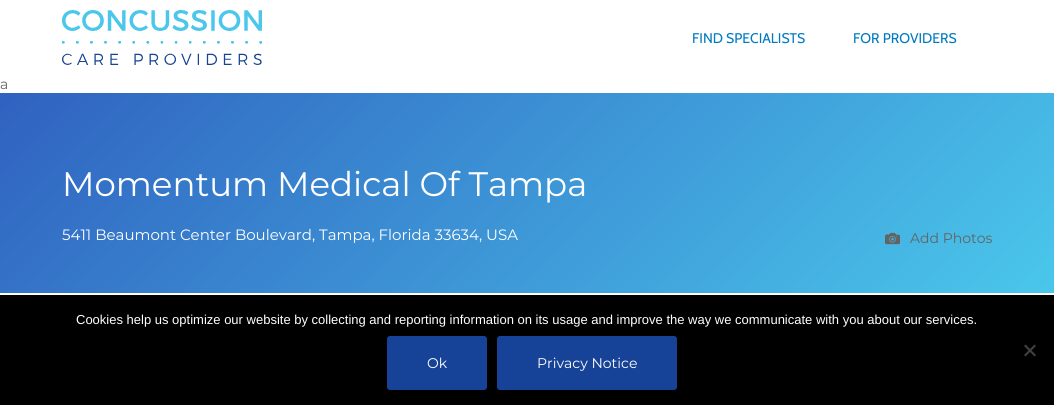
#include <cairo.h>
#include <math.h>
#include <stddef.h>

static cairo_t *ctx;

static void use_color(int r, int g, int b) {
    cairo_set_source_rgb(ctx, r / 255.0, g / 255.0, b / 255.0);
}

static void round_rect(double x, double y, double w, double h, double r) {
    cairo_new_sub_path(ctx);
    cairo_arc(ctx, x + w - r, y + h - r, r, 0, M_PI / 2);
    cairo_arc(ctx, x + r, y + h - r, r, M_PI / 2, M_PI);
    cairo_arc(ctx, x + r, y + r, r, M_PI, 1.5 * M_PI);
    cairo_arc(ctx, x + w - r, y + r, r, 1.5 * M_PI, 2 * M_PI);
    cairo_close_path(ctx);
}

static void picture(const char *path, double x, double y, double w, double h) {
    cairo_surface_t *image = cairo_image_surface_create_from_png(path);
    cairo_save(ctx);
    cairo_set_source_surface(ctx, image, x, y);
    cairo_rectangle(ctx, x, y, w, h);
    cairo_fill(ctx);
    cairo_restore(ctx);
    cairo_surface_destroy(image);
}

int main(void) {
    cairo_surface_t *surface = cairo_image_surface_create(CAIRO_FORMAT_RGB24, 1054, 405);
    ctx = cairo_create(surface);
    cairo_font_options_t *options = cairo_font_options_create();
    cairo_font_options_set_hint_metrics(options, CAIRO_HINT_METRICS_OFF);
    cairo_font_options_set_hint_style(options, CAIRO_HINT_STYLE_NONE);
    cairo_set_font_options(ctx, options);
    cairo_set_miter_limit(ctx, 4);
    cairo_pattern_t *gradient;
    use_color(255, 255, 255);
    cairo_paint(ctx);
    picture("img1.png", 62, 10, 200, 55);
    cairo_select_font_face(ctx, "Cabin", CAIRO_FONT_SLANT_NORMAL, CAIRO_FONT_WEIGHT_NORMAL);
    cairo_set_font_size(ctx, 14);
    use_color(0, 122, 192);
    cairo_move_to(ctx, 692, 43);
    cairo_show_text(ctx, "FIND SPECIALISTS");
    cairo_move_to(ctx, 853, 43);
    cairo_show_text(ctx, "FOR PROVIDERS");
    cairo_select_font_face(ctx, "Montserrat", CAIRO_FONT_SLANT_NORMAL, CAIRO_FONT_WEIGHT_NORMAL);
    use_color(99, 99, 99);
    cairo_move_to(ctx, 0, 89);
    cairo_show_text(ctx, "a");
    gradient = cairo_pattern_create_linear(841, 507, 213, -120);
    cairo_pattern_add_color_stop_rgba(gradient, 0, 0.29, 0.78, 0.922, 1);
    cairo_pattern_add_color_stop_rgba(gradient, 1, 0.188, 0.384, 0.753, 1);
    cairo_set_source(ctx, gradient);
    cairo_pattern_destroy(gradient);
    cairo_rectangle(ctx, 0, 93, 1054, 200);
    cairo_fill(ctx);
    cairo_set_font_size(ctx, 34);
    use_color(255, 255, 255);
    cairo_move_to(ctx, 62, 196);
    cairo_show_text(ctx, "Momentum Medical Of Tampa");
    cairo_set_font_size(ctx, 15);
    cairo_move_to(ctx, 62, 240);
    cairo_show_text(ctx, "5411 Beaumont Center Boulevard, Tampa, Florida 33634, USA");
    picture("img2.png", 885, 232, 15, 13);
    cairo_set_font_size(ctx, 14);
    use_color(99, 99, 99);
    cairo_move_to(ctx, 910, 243);
    cairo_show_text(ctx, "Add Photos");
    use_color(0, 0, 0);
    cairo_rectangle(ctx, 0, 295, 1054, 110);
    cairo_fill(ctx);
    cairo_select_font_face(ctx, "Liberation Sans", CAIRO_FONT_SLANT_NORMAL, CAIRO_FONT_WEIGHT_NORMAL);
    cairo_set_font_size(ctx, 13);
    use_color(255, 255, 255);
    cairo_move_to(ctx, 76, 324);
    cairo_show_text(ctx, "Cookies help us optimize our website by collecting and reporting information on its usage and improve the way we communicate with you about our services.");
    use_color(64, 64, 64);
    cairo_new_path(ctx);
    cairo_move_to(ctx, 1034.5, 344.5);
    cairo_line_to(ctx, 1036, 346);
    cairo_line_to(ctx, 1025.5, 356.5);
    cairo_line_to(ctx, 1024, 355);
    cairo_close_path(ctx);
    cairo_fill(ctx);
    cairo_new_path(ctx);
    cairo_move_to(ctx, 1024, 346);
    cairo_line_to(ctx, 1025.5, 344.5);
    cairo_line_to(ctx, 1036, 355);
    cairo_line_to(ctx, 1034.5, 356.5);
    cairo_close_path(ctx);
    cairo_fill(ctx);
    use_color(22, 67, 151);
    round_rect(387, 336, 100, 54, 3);
    cairo_fill(ctx);
    cairo_select_font_face(ctx, "Montserrat", CAIRO_FONT_SLANT_NORMAL, CAIRO_FONT_WEIGHT_NORMAL);
    cairo_set_font_size(ctx, 14);
    use_color(255, 255, 255);
    cairo_move_to(ctx, 427, 368);
    cairo_show_text(ctx, "Ok");
    use_color(22, 67, 151);
    round_rect(497, 336, 180, 54, 3);
    cairo_fill(ctx);
    use_color(255, 255, 255);
    cairo_move_to(ctx, 537, 368);
    cairo_show_text(ctx, "Privacy Notice");
    cairo_surface_write_to_png(surface, "result.png");
    cairo_font_options_destroy(options);
    cairo_destroy(ctx);
    cairo_surface_destroy(surface);
    return 0;
}
